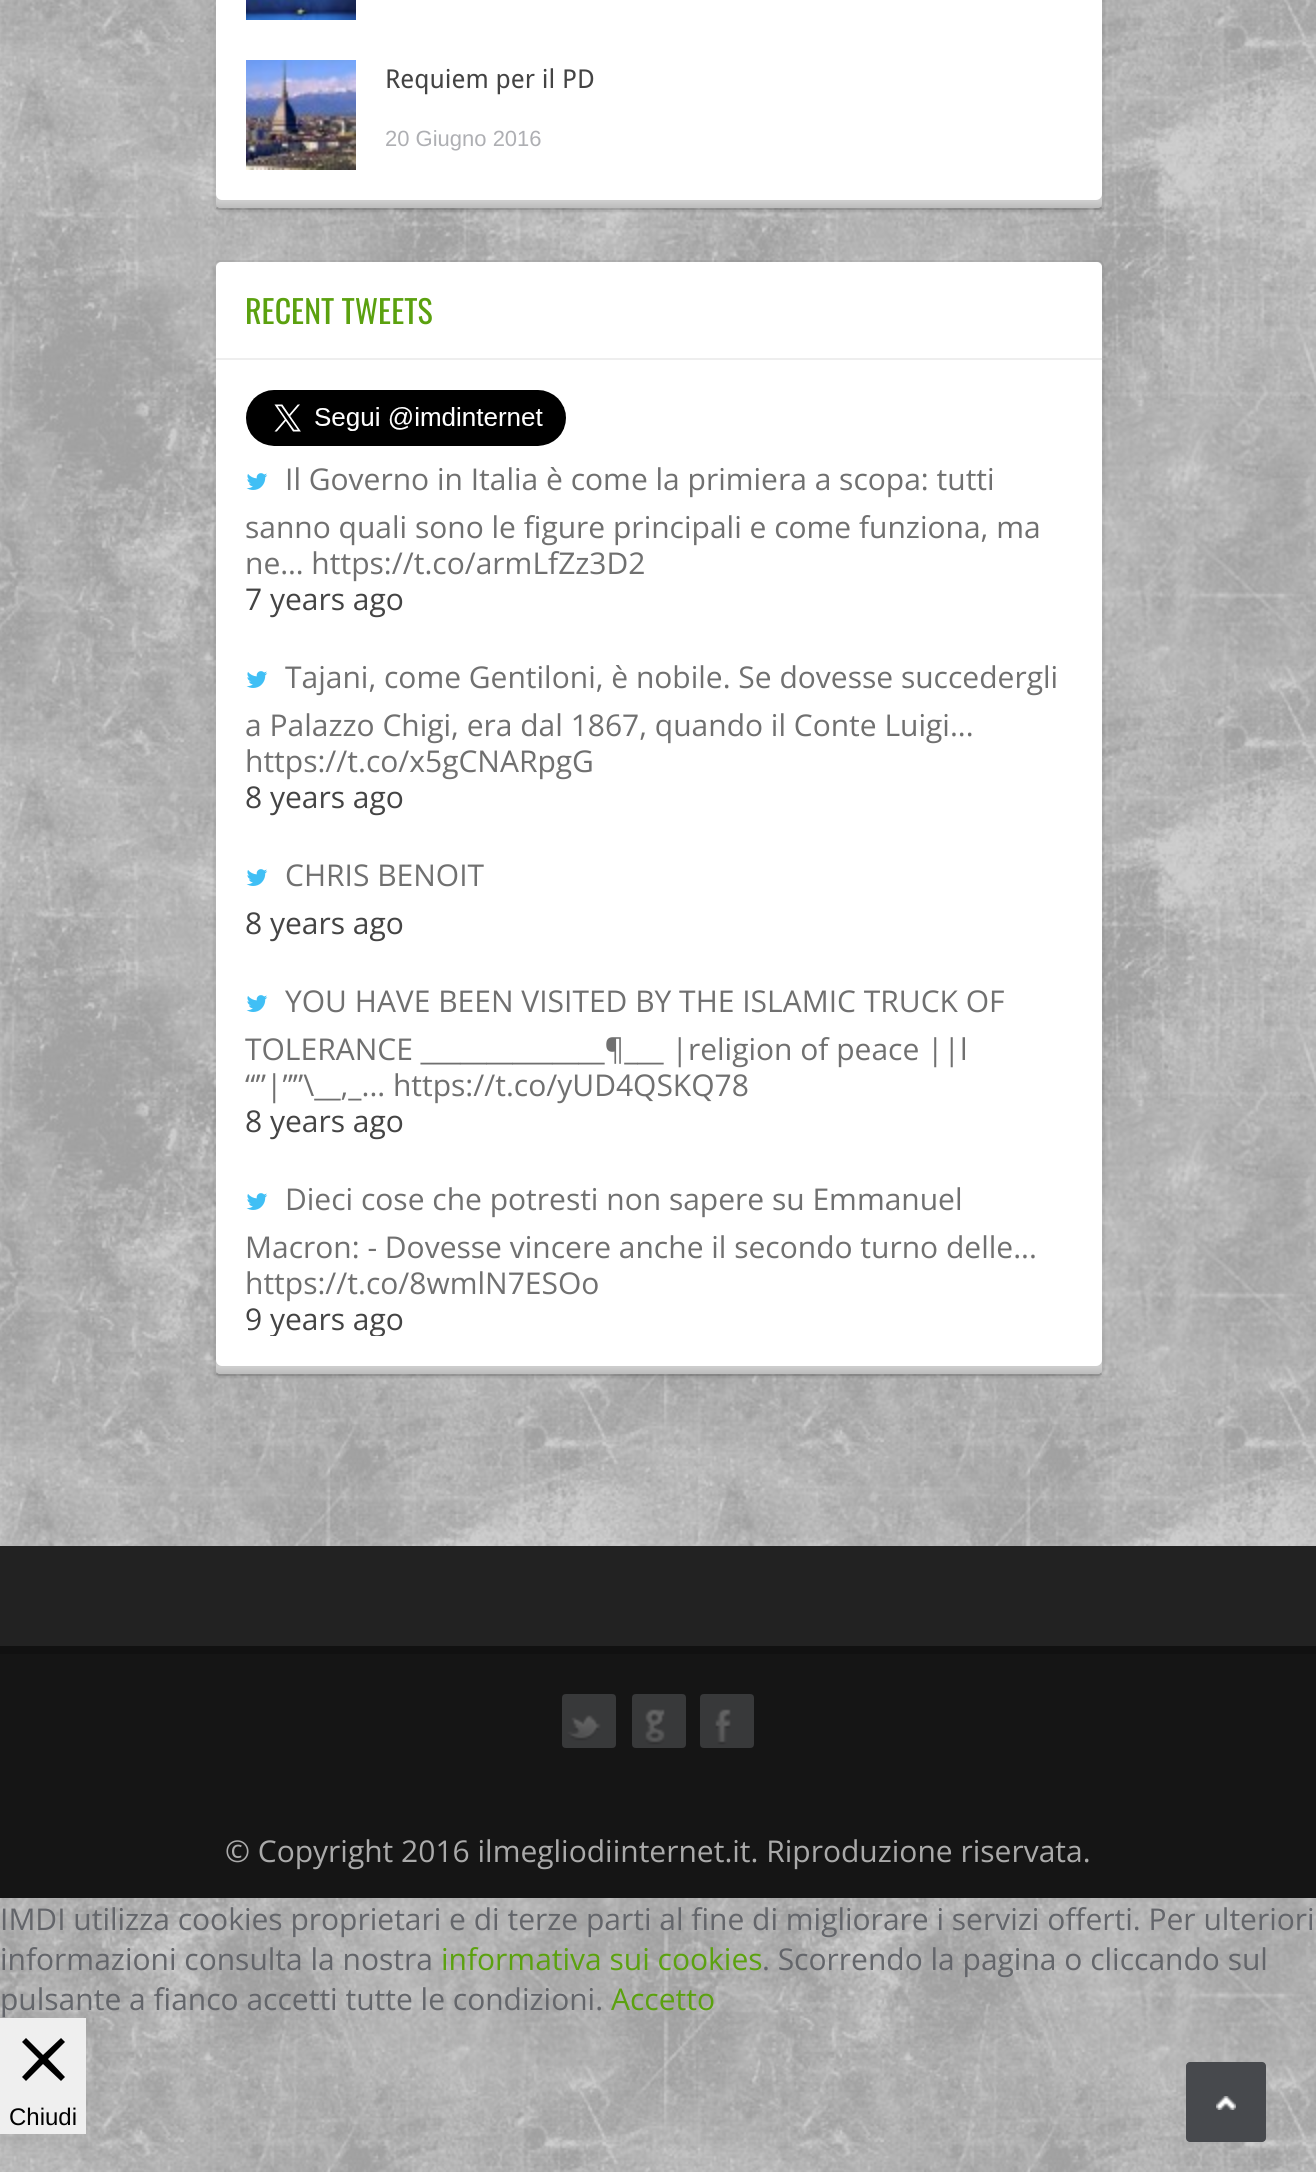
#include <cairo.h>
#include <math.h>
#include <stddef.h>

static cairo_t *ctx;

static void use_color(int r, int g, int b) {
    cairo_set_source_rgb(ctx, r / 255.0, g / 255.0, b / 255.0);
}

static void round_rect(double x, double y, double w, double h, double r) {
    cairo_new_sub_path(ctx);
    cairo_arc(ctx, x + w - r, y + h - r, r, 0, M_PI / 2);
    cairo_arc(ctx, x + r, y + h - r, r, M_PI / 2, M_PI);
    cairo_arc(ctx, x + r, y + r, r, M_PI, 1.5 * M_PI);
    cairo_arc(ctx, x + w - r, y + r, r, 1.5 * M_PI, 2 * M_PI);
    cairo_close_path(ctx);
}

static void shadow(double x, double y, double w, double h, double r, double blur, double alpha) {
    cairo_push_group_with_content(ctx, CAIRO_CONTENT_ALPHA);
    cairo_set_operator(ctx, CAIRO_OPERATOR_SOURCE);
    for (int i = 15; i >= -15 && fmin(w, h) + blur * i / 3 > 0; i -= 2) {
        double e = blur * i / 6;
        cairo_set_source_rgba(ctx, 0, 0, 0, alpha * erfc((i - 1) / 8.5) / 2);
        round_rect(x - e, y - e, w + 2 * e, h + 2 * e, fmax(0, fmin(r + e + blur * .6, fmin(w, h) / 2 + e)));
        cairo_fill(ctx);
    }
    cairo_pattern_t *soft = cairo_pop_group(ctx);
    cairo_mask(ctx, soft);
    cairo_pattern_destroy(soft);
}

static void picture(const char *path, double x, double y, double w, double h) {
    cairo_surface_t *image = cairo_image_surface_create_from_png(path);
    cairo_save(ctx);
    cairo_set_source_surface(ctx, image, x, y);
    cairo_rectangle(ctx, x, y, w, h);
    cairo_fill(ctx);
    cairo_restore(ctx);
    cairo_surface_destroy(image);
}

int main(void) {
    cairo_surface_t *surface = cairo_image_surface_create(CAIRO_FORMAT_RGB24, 1316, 2172);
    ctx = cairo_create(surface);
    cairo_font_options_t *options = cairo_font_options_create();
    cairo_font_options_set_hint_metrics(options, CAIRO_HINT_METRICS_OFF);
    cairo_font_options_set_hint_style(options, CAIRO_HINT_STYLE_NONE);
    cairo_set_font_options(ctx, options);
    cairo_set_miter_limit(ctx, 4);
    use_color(255, 255, 255);
    cairo_paint(ctx);
    picture("img1.png", 0, 0, 1316, 2172);
    cairo_save(ctx);
    cairo_set_fill_rule(ctx, CAIRO_FILL_RULE_EVEN_ODD);
    cairo_new_path(ctx);
    cairo_move_to(ctx, 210, 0);
    cairo_line_to(ctx, 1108, 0);
    cairo_line_to(ctx, 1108, 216);
    cairo_line_to(ctx, 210, 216);
    cairo_close_path(ctx);
    cairo_move_to(ctx, 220, -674);
    cairo_line_to(ctx, 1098, -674);
    cairo_curve_to(ctx, 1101.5, -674, 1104, -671.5, 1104, -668);
    cairo_line_to(ctx, 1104, 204);
    cairo_curve_to(ctx, 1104, 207.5, 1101.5, 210, 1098, 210);
    cairo_line_to(ctx, 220, 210);
    cairo_curve_to(ctx, 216.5, 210, 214, 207.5, 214, 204);
    cairo_line_to(ctx, 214, -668);
    cairo_curve_to(ctx, 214, -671.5, 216.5, -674, 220, -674);
    cairo_close_path(ctx);
    cairo_clip(ctx);
    use_color(0, 0, 0);
    shadow(214, -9, 890, 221, 6, 1, 0.1);
    cairo_restore(ctx);
    picture("img2.png", 216, 194, 886, 14);
    cairo_new_path(ctx);
    cairo_move_to(ctx, 1101.5, 207.5);
    cairo_curve_to(ctx, 1100.5, 208.5, 1099.5, 209, 1098, 209);
    cairo_line_to(ctx, 220, 209);
    cairo_curve_to(ctx, 218.5, 209, 217.5, 208.5, 216.5, 207.5);
    cairo_set_source_rgba(ctx, 0, 0, 0, 0.2);
    cairo_stroke(ctx);
    cairo_new_path(ctx);
    cairo_move_to(ctx, 216.5, 207.5);
    cairo_curve_to(ctx, 215.5, 206.5, 215, 205.5, 215, 204);
    cairo_line_to(ctx, 215, -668);
    cairo_curve_to(ctx, 215, -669.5, 215.5, -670.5, 216.5, -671.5);
    cairo_curve_to(ctx, 217.5, -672.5, 218.5, -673, 220, -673);
    cairo_line_to(ctx, 1098, -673);
    cairo_curve_to(ctx, 1099.5, -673, 1100.5, -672.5, 1101.5, -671.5);
    cairo_curve_to(ctx, 1102.5, -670.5, 1103, -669.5, 1103, -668);
    cairo_line_to(ctx, 1103, 204);
    cairo_curve_to(ctx, 1103, 205.5, 1102.5, 206.5, 1101.5, 207.5);
    cairo_set_source_rgba(ctx, 0, 0, 0, 0.05);
    cairo_stroke(ctx);
    use_color(255, 255, 255);
    round_rect(217, -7, 884, 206, 5);
    cairo_fill_preserve(ctx);
    cairo_stroke(ctx);
    picture("img3.png", 246, 0, 110, 20);
    picture("img4.png", 246, 60, 110, 110);
    cairo_select_font_face(ctx, "Droid Sans", CAIRO_FONT_SLANT_NORMAL, CAIRO_FONT_WEIGHT_NORMAL);
    cairo_set_font_size(ctx, 26);
    use_color(68, 68, 68);
    cairo_move_to(ctx, 385, 88);
    cairo_show_text(ctx, "Requiem per il PD");
    cairo_select_font_face(ctx, "Liberation Sans", CAIRO_FONT_SLANT_NORMAL, CAIRO_FONT_WEIGHT_NORMAL);
    cairo_set_font_size(ctx, 22);
    use_color(174, 175, 179);
    cairo_move_to(ctx, 385, 146);
    cairo_show_text(ctx, "20 Giugno 2016");
    cairo_save(ctx);
    cairo_set_fill_rule(ctx, CAIRO_FILL_RULE_EVEN_ODD);
    cairo_new_path(ctx);
    cairo_move_to(ctx, 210, 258);
    cairo_line_to(ctx, 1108, 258);
    cairo_line_to(ctx, 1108, 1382);
    cairo_line_to(ctx, 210, 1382);
    cairo_close_path(ctx);
    cairo_move_to(ctx, 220, 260);
    cairo_line_to(ctx, 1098, 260);
    cairo_curve_to(ctx, 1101.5, 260, 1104, 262.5, 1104, 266);
    cairo_line_to(ctx, 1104, 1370);
    cairo_curve_to(ctx, 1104, 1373.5, 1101.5, 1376, 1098, 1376);
    cairo_line_to(ctx, 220, 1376);
    cairo_curve_to(ctx, 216.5, 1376, 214, 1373.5, 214, 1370);
    cairo_line_to(ctx, 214, 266);
    cairo_curve_to(ctx, 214, 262.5, 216.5, 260, 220, 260);
    cairo_close_path(ctx);
    cairo_clip(ctx);
    use_color(0, 0, 0);
    shadow(214, 262, 890, 1116, 6, 1, 0.1);
    cairo_restore(ctx);
    use_color(210, 210, 210);
    round_rect(216, 262, 886, 1112, 4);
    cairo_fill(ctx);
    picture("img5.png", 216, 1360, 886, 14);
    cairo_new_path(ctx);
    cairo_move_to(ctx, 1101.5, 1373.5);
    cairo_curve_to(ctx, 1100.5, 1374.5, 1099.5, 1375, 1098, 1375);
    cairo_line_to(ctx, 220, 1375);
    cairo_curve_to(ctx, 218.5, 1375, 217.5, 1374.5, 216.5, 1373.5);
    cairo_set_source_rgba(ctx, 0, 0, 0, 0.2);
    cairo_stroke(ctx);
    cairo_new_path(ctx);
    cairo_move_to(ctx, 216.5, 1373.5);
    cairo_curve_to(ctx, 215.5, 1372.5, 215, 1371.5, 215, 1370);
    cairo_line_to(ctx, 215, 266);
    cairo_curve_to(ctx, 215, 264.5, 215.5, 263.5, 216.5, 262.5);
    cairo_curve_to(ctx, 217.5, 261.5, 218.5, 261, 220, 261);
    cairo_line_to(ctx, 1098, 261);
    cairo_curve_to(ctx, 1099.5, 261, 1100.5, 261.5, 1101.5, 262.5);
    cairo_curve_to(ctx, 1102.5, 263.5, 1103, 264.5, 1103, 266);
    cairo_line_to(ctx, 1103, 1370);
    cairo_curve_to(ctx, 1103, 1371.5, 1102.5, 1372.5, 1101.5, 1373.5);
    cairo_set_source_rgba(ctx, 0, 0, 0, 0.05);
    cairo_stroke(ctx);
    use_color(255, 255, 255);
    round_rect(217, 263, 884, 1102, 5);
    cairo_fill_preserve(ctx);
    cairo_stroke(ctx);
    cairo_new_path(ctx);
    cairo_move_to(ctx, 222, 262);
    cairo_curve_to(ctx, 219, 262, 216, 265, 216, 268);
    cairo_line_to(ctx, 216, 358);
    cairo_line_to(ctx, 1102, 358);
    cairo_line_to(ctx, 1102, 268);
    cairo_curve_to(ctx, 1102, 265, 1099, 262, 1096, 262);
    cairo_close_path(ctx);
    cairo_fill(ctx);
    use_color(238, 238, 238);
    cairo_rectangle(ctx, 216, 358, 886, 2);
    cairo_fill(ctx);
    cairo_select_font_face(ctx, "Oswald", CAIRO_FONT_SLANT_NORMAL, CAIRO_FONT_WEIGHT_NORMAL);
    cairo_set_font_size(ctx, 32);
    use_color(91, 161, 15);
    cairo_move_to(ctx, 245, 324);
    cairo_show_text(ctx, "RECENT TWEETS");
    picture("img6.png", 246, 390, 320, 56);
    picture("img7.png", 246, 473, 22, 17);
    cairo_select_font_face(ctx, "Open Sans", CAIRO_FONT_SLANT_NORMAL, CAIRO_FONT_WEIGHT_NORMAL);
    cairo_set_font_size(ctx, 30);
    use_color(112, 112, 112);
    cairo_move_to(ctx, 285, 490);
    cairo_show_text(ctx, "Il Governo in Italia è come la primiera a scopa: tutti");
    cairo_move_to(ctx, 245, 538);
    cairo_show_text(ctx, "sanno quali sono le figure principali e come funziona, ma");
    cairo_move_to(ctx, 245, 574);
    cairo_show_text(ctx, "ne… https://t.co/armLfZz3D2");
    use_color(68, 68, 68);
    cairo_move_to(ctx, 245, 610);
    cairo_show_text(ctx, "7 years ago");
    picture("img7.png", 246, 671, 22, 17);
    use_color(112, 112, 112);
    cairo_move_to(ctx, 285, 688);
    cairo_show_text(ctx, "Tajani, come Gentiloni, è nobile. Se dovesse succedergli");
    cairo_move_to(ctx, 245, 736);
    cairo_show_text(ctx, "a Palazzo Chigi, era dal 1867, quando il Conte Luigi...");
    cairo_move_to(ctx, 245, 772);
    cairo_show_text(ctx, "https://t.co/x5gCNARpgG");
    use_color(68, 68, 68);
    cairo_move_to(ctx, 245, 808);
    cairo_show_text(ctx, "8 years ago");
    picture("img7.png", 246, 869, 22, 17);
    use_color(112, 112, 112);
    cairo_move_to(ctx, 285, 886);
    cairo_show_text(ctx, "CHRIS BENOIT");
    use_color(68, 68, 68);
    cairo_move_to(ctx, 245, 934);
    cairo_show_text(ctx, "8 years ago");
    picture("img7.png", 246, 995, 22, 17);
    use_color(112, 112, 112);
    cairo_move_to(ctx, 285, 1012);
    cairo_show_text(ctx, "YOU HAVE BEEN VISITED BY THE ISLAMIC TRUCK OF");
    cairo_move_to(ctx, 245, 1060);
    cairo_show_text(ctx, "TOLERANCE ______________¶___ |religion of peace ||l");
    cairo_move_to(ctx, 245, 1096);
    cairo_show_text(ctx, "“”|””\\__,_... https://t.co/yUD4QSKQ78");
    use_color(68, 68, 68);
    cairo_move_to(ctx, 245, 1132);
    cairo_show_text(ctx, "8 years ago");
    picture("img7.png", 246, 1193, 22, 17);
    use_color(112, 112, 112);
    cairo_move_to(ctx, 285, 1210);
    cairo_show_text(ctx, "Dieci cose che potresti non sapere su Emmanuel");
    cairo_move_to(ctx, 245, 1258);
    cairo_show_text(ctx, "Macron: - Dovesse vincere anche il secondo turno delle...");
    cairo_move_to(ctx, 245, 1294);
    cairo_show_text(ctx, "https://t.co/8wmlN7ESOo");
    cairo_save(ctx);
    cairo_rectangle(ctx, 216, 1158, 886, 178);
    cairo_clip(ctx);
    use_color(68, 68, 68);
    cairo_move_to(ctx, 245, 1330);
    cairo_show_text(ctx, "9 years ago");
    cairo_restore(ctx);
    use_color(34, 34, 34);
    cairo_rectangle(ctx, 0, 1546, 1316, 100);
    cairo_fill(ctx);
    use_color(17, 17, 17);
    cairo_rectangle(ctx, 0, 1646, 1316, 8);
    cairo_fill(ctx);
    use_color(21, 21, 21);
    cairo_rectangle(ctx, 0, 1654, 1316, 244);
    cairo_fill(ctx);
    picture("img8.png", 562, 1694, 54, 54);
    picture("img9.png", 632, 1694, 54, 54);
    picture("img10.png", 700, 1694, 54, 54);
    use_color(170, 170, 170);
    cairo_move_to(ctx, 225, 1862);
    cairo_show_text(ctx, "© Copyright 2016 ilmegliodiinternet.it. Riproduzione riservata.");
    use_color(99, 101, 106);
    cairo_move_to(ctx, 0, 1930);
    cairo_show_text(ctx, "IMDI utilizza cookies proprietari e di terze parti al fine di migliorare i servizi offerti. Per ulteriori");
    cairo_move_to(ctx, 0, 1970);
    cairo_show_text(ctx, "informazioni consulta la nostra");
    use_color(91, 161, 15);
    cairo_move_to(ctx, 441, 1970);
    cairo_show_text(ctx, "informativa sui cookies");
    use_color(99, 101, 106);
    cairo_move_to(ctx, 762, 1970);
    cairo_show_text(ctx, ". Scorrendo la pagina o cliccando sul");
    cairo_move_to(ctx, 0, 2010);
    cairo_show_text(ctx, "pulsante a fianco accetti tutte le condizioni.");
    use_color(91, 161, 15);
    cairo_move_to(ctx, 611, 2010);
    cairo_show_text(ctx, "Accetto");
    use_color(239, 239, 239);
    cairo_rectangle(ctx, 0, 2018, 86, 116);
    cairo_fill(ctx);
    use_color(0, 0, 0);
    cairo_new_path(ctx);
    cairo_move_to(ctx, 65, 2042);
    cairo_line_to(ctx, 61, 2038);
    cairo_line_to(ctx, 43, 2055);
    cairo_line_to(ctx, 26, 2038);
    cairo_line_to(ctx, 22, 2042);
    cairo_line_to(ctx, 39, 2059);
    cairo_line_to(ctx, 22, 2077);
    cairo_line_to(ctx, 26, 2081);
    cairo_line_to(ctx, 43, 2064);
    cairo_line_to(ctx, 61, 2081);
    cairo_line_to(ctx, 65, 2077);
    cairo_line_to(ctx, 48, 2059);
    cairo_close_path(ctx);
    cairo_fill(ctx);
    cairo_select_font_face(ctx, "Liberation Sans", CAIRO_FONT_SLANT_NORMAL, CAIRO_FONT_WEIGHT_NORMAL);
    cairo_set_font_size(ctx, 24);
    cairo_move_to(ctx, 9, 2125);
    cairo_show_text(ctx, "Chiudi");
    use_color(71, 73, 77);
    round_rect(1186, 2062, 80, 80, 4);
    cairo_fill(ctx);
    picture("img11.png", 1216, 2096, 20, 14);
    cairo_surface_write_to_png(surface, "result.png");
    cairo_font_options_destroy(options);
    cairo_destroy(ctx);
    cairo_surface_destroy(surface);
    return 0;
}
